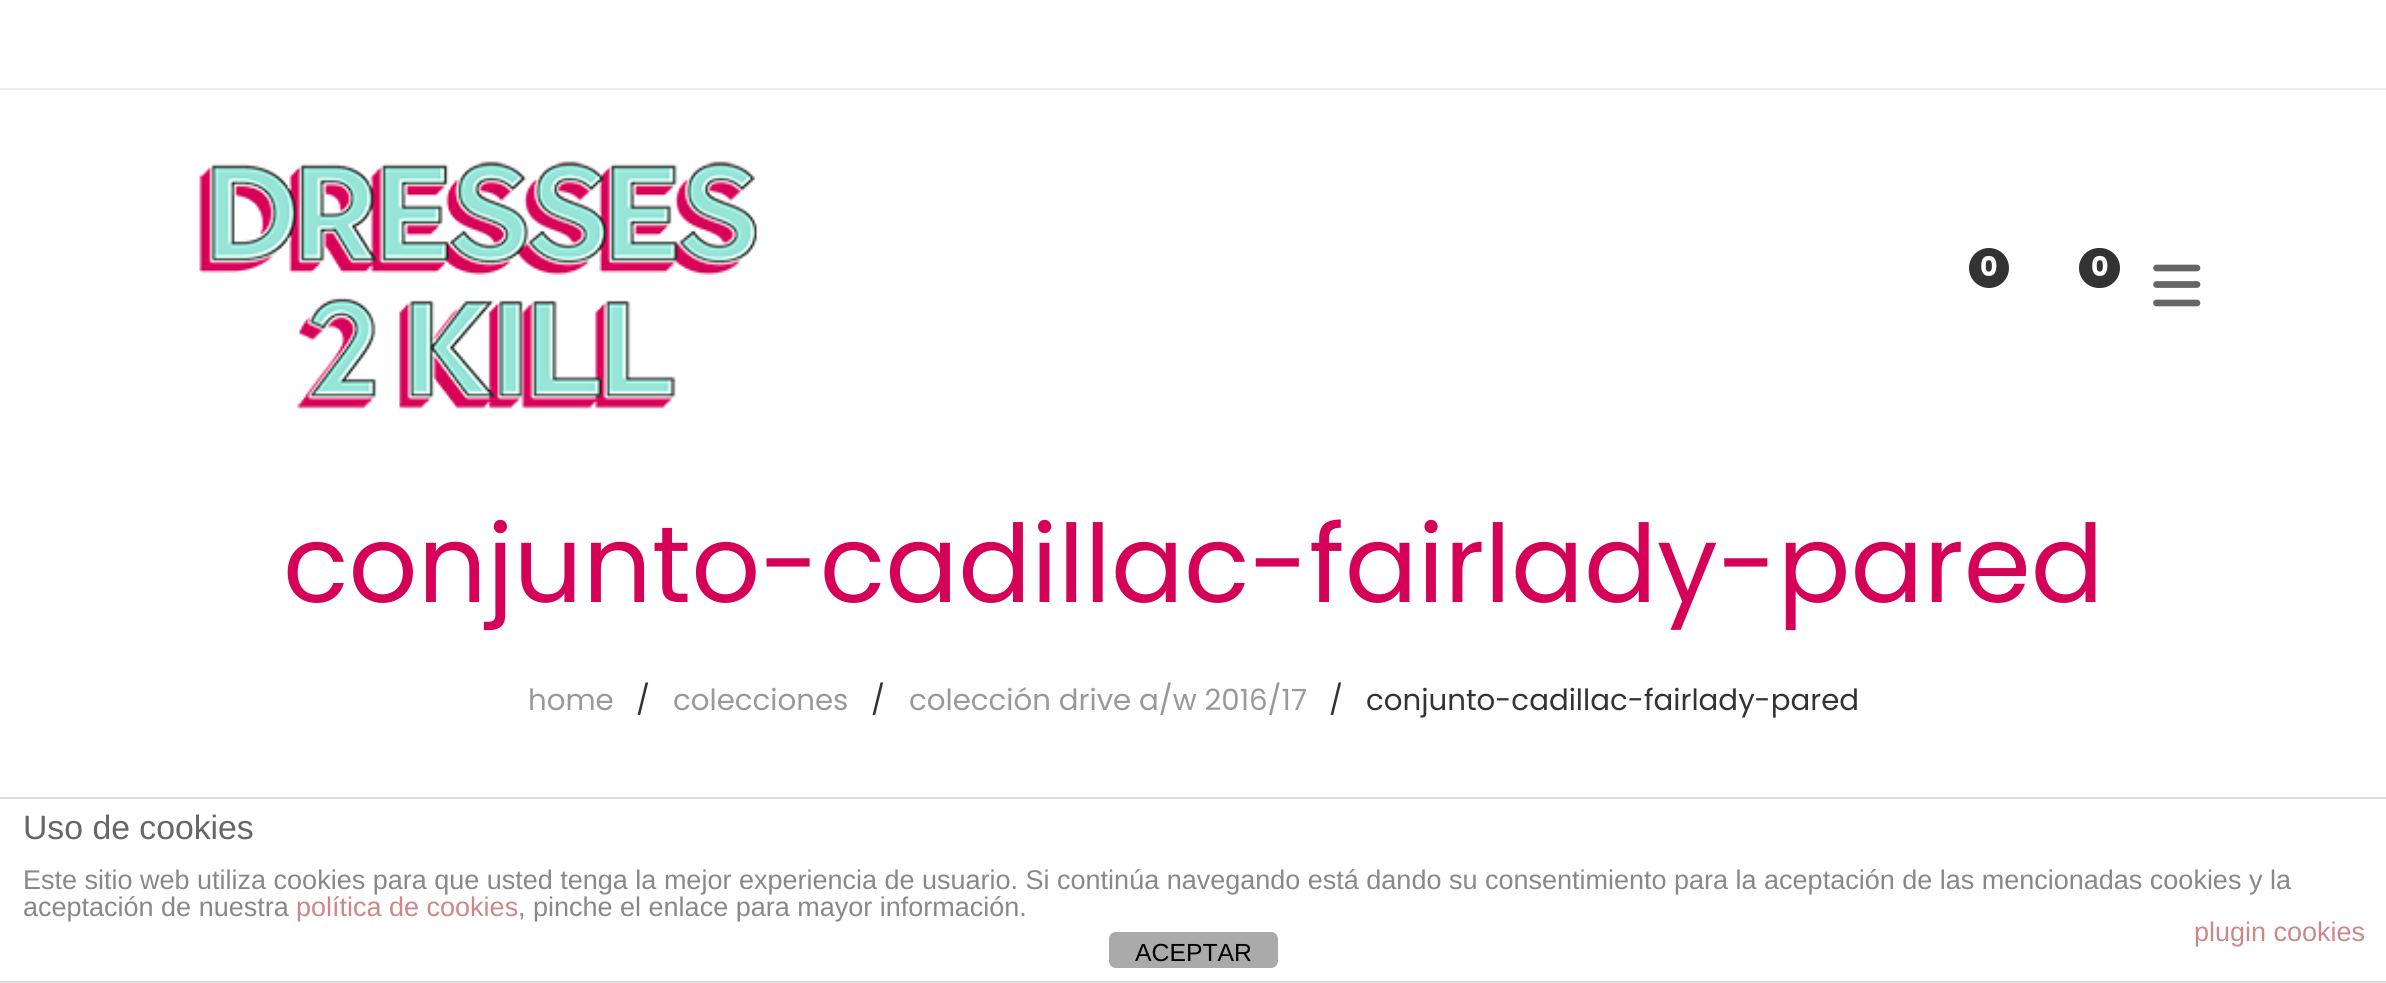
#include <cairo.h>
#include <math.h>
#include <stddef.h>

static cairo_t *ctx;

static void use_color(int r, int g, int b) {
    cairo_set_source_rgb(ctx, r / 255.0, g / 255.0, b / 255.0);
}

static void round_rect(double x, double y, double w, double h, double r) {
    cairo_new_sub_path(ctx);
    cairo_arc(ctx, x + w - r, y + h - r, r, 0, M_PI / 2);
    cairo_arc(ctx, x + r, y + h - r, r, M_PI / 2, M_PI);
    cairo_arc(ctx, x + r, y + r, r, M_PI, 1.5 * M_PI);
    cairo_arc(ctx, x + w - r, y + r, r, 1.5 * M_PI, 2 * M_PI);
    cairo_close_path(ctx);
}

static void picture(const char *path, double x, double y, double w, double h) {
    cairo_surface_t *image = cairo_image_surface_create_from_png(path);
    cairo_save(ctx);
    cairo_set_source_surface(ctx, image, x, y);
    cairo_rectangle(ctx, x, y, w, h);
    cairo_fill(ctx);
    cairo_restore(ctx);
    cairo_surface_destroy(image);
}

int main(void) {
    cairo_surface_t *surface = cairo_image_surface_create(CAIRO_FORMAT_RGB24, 2386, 983);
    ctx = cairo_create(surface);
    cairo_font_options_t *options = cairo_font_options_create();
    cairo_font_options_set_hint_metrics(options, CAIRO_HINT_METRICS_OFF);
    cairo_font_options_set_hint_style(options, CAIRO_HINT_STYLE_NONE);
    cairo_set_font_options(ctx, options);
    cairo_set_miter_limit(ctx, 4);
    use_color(255, 255, 255);
    cairo_paint(ctx);
    use_color(238, 238, 238);
    cairo_rectangle(ctx, 0, 88, 2386, 2);
    cairo_fill(ctx);
    picture("img1.png", 199, 161, 559, 248);
    use_color(51, 51, 51);
    cairo_arc(ctx, 1989, 268, 20, 0, 2 * M_PI);
    cairo_fill(ctx);
    cairo_select_font_face(ctx, "Poppins", CAIRO_FONT_SLANT_NORMAL, CAIRO_FONT_WEIGHT_BOLD);
    cairo_set_font_size(ctx, 27);
    use_color(255, 255, 255);
    cairo_move_to(ctx, 1980, 276);
    cairo_show_text(ctx, "0");
    use_color(51, 51, 51);
    round_rect(2079, 248, 41, 40, 20);
    cairo_fill(ctx);
    use_color(255, 255, 255);
    cairo_move_to(ctx, 2091, 276);
    cairo_show_text(ctx, "0");
    cairo_new_path(ctx);
    cairo_move_to(ctx, 2156.5, 268);
    cairo_line_to(ctx, 2197, 268);
    cairo_move_to(ctx, 2156.5, 284.5);
    cairo_line_to(ctx, 2197, 284.5);
    cairo_move_to(ctx, 2156.5, 303);
    cairo_line_to(ctx, 2197, 303);
    use_color(102, 102, 102);
    cairo_set_line_width(ctx, 6.7);
    cairo_set_line_cap(ctx, CAIRO_LINE_CAP_ROUND);
    cairo_stroke(ctx);
    cairo_select_font_face(ctx, "Poppins", CAIRO_FONT_SLANT_NORMAL, CAIRO_FONT_WEIGHT_NORMAL);
    cairo_set_font_size(ctx, 108);
    use_color(213, 0, 87);
    cairo_move_to(ctx, 283, 602);
    cairo_show_text(ctx, "conjunto-cadillac-fairlady-pared");
    cairo_set_font_size(ctx, 29.25);
    use_color(153, 153, 153);
    cairo_move_to(ctx, 528, 710);
    cairo_show_text(ctx, "home");
    use_color(51, 51, 51);
    cairo_move_to(ctx, 636, 710);
    cairo_show_text(ctx, "/");
    use_color(153, 153, 153);
    cairo_move_to(ctx, 673, 710);
    cairo_show_text(ctx, "colecciones");
    use_color(51, 51, 51);
    cairo_move_to(ctx, 871, 710);
    cairo_show_text(ctx, "/");
    use_color(153, 153, 153);
    cairo_move_to(ctx, 909, 710);
    cairo_show_text(ctx, "colección drive a/w 2016/17");
    use_color(51, 51, 51);
    cairo_move_to(ctx, 1329, 710);
    cairo_show_text(ctx, "/");
    cairo_move_to(ctx, 1366, 710);
    cairo_show_text(ctx, "conjunto-cadillac-fairlady-pared");
    use_color(221, 221, 221);
    cairo_rectangle(ctx, 0, 797, 2386, 2);
    cairo_fill(ctx);
    cairo_rectangle(ctx, 0, 981, 2386, 2);
    cairo_fill(ctx);
    cairo_select_font_face(ctx, "Liberation Sans", CAIRO_FONT_SLANT_NORMAL, CAIRO_FONT_WEIGHT_NORMAL);
    cairo_set_font_size(ctx, 33.75);
    use_color(102, 102, 102);
    cairo_move_to(ctx, 23, 839);
    cairo_show_text(ctx, "Uso de cookies");
    cairo_set_font_size(ctx, 27);
    use_color(136, 136, 136);
    cairo_move_to(ctx, 23, 889);
    cairo_show_text(ctx, "Este sitio web utiliza cookies para que usted tenga la mejor experiencia de usuario. Si continúa navegando está dando su consentimiento para la aceptación de las mencionadas cookies y la");
    cairo_move_to(ctx, 23, 916);
    cairo_show_text(ctx, "aceptación de nuestra");
    use_color(204, 136, 136);
    cairo_move_to(ctx, 296, 916);
    cairo_show_text(ctx, "política de cookies");
    use_color(136, 136, 136);
    cairo_move_to(ctx, 518, 916);
    cairo_show_text(ctx, ", pinche el enlace para mayor información.");
    use_color(204, 136, 136);
    cairo_move_to(ctx, 2194, 941);
    cairo_show_text(ctx, "plugin cookies");
    use_color(170, 170, 170);
    round_rect(1109, 932, 169, 36, 7);
    cairo_fill(ctx);
    cairo_set_font_size(ctx, 24.75);
    use_color(0, 0, 0);
    cairo_move_to(ctx, 1135, 961);
    cairo_show_text(ctx, "ACEPTAR");
    cairo_surface_write_to_png(surface, "result.png");
    cairo_font_options_destroy(options);
    cairo_destroy(ctx);
    cairo_surface_destroy(surface);
    return 0;
}
